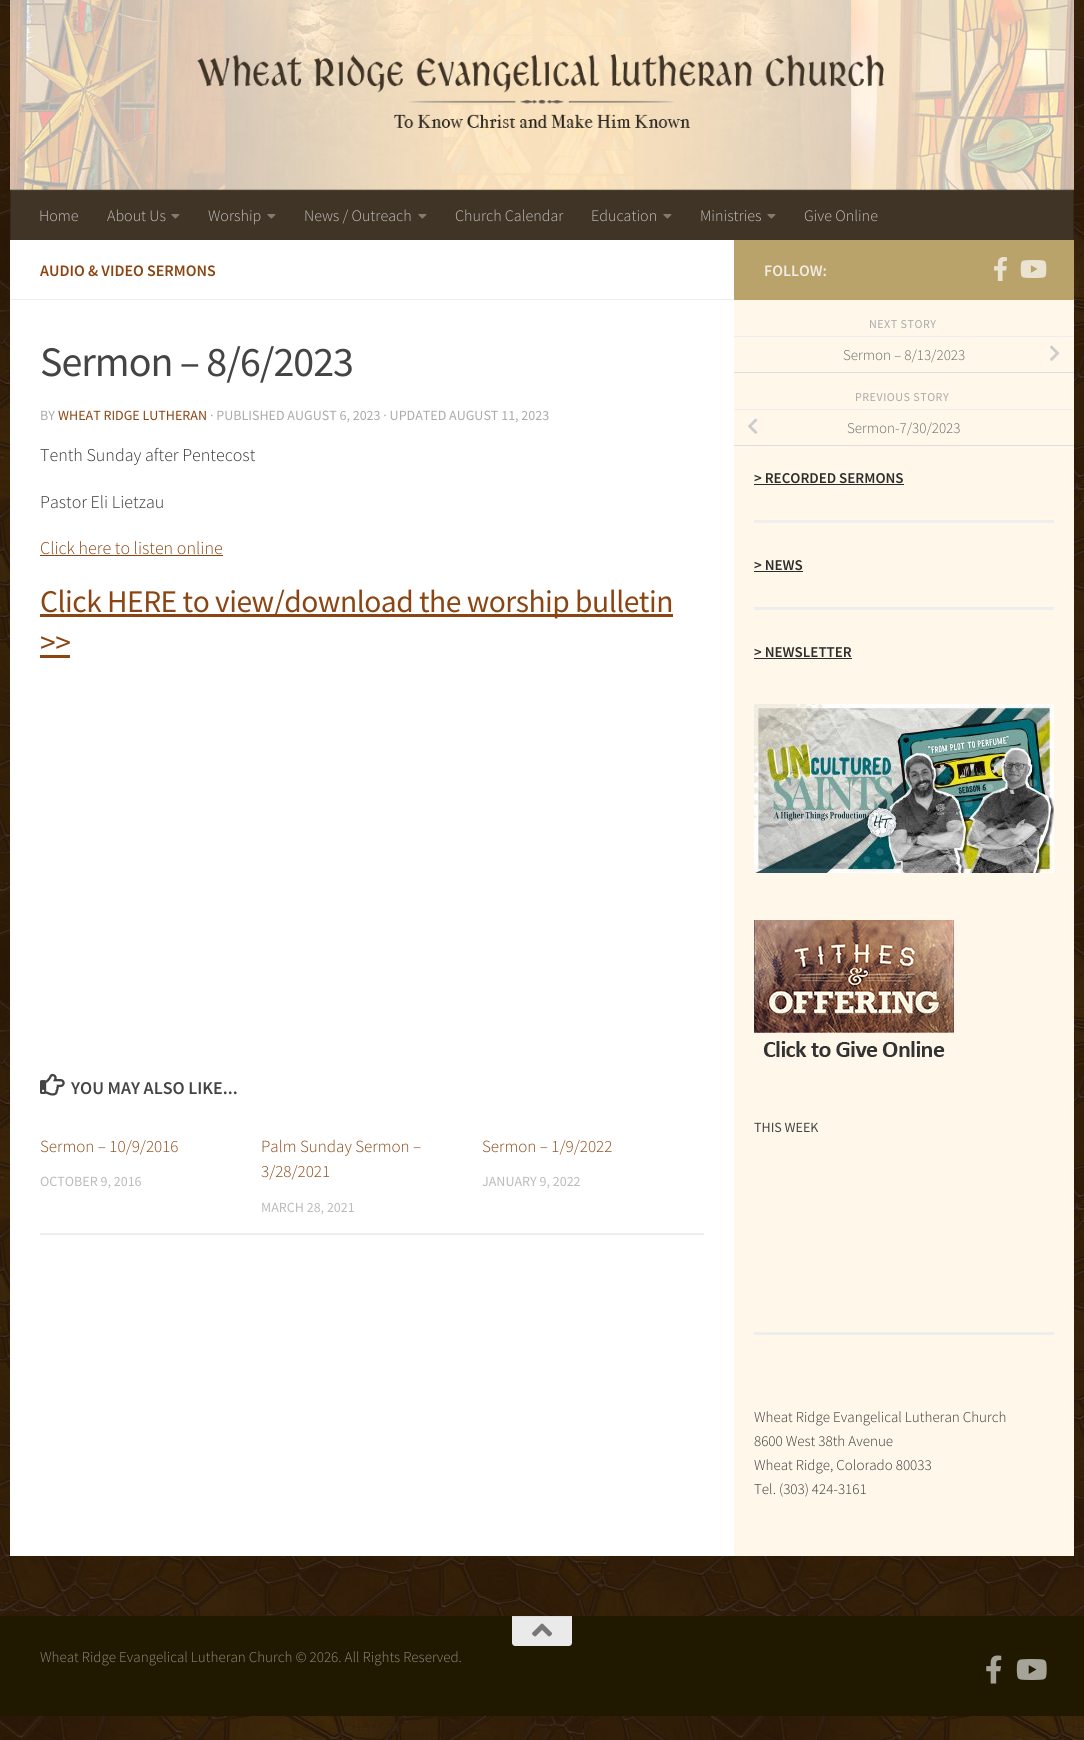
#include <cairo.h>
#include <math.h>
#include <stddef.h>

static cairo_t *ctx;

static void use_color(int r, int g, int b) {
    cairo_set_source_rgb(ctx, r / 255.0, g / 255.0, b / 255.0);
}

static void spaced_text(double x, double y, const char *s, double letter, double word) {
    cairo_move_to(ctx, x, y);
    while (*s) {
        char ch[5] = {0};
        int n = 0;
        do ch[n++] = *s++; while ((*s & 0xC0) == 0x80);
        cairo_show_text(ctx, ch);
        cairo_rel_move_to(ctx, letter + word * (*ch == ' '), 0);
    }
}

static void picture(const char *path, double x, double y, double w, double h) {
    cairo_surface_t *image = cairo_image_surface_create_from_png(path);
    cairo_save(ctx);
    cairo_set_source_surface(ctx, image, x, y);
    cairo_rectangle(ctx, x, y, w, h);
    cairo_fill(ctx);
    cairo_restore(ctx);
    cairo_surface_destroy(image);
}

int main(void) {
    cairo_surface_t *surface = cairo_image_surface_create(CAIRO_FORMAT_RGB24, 1084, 1740);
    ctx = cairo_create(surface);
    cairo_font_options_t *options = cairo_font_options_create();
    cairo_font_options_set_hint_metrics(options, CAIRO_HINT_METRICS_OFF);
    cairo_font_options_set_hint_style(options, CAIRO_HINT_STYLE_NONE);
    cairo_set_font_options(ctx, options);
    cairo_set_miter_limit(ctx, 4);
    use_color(255, 255, 255);
    cairo_paint(ctx);
    picture("img1.png", 0, 0, 1084, 1740);
    picture("img2.png", 10, 0, 1064, 190);
    picture("img3.png", 197, 54, 687, 74);
    cairo_set_source_rgba(ctx, 0, 0, 0, 0.2);
    cairo_rectangle(ctx, 10, 189, 1064, 1);
    cairo_fill(ctx);
    use_color(63, 52, 38);
    cairo_rectangle(ctx, 11, 190, 1062, 50);
    cairo_fill(ctx);
    use_color(50, 42, 30);
    cairo_rectangle(ctx, 1073, 190, 1, 50);
    cairo_fill(ctx);
    cairo_rectangle(ctx, 10, 190, 1, 50);
    cairo_fill(ctx);
    cairo_set_source_rgba(ctx, 1, 1, 1, 0.05);
    cairo_rectangle(ctx, 10, 190, 1064, 1);
    cairo_fill(ctx);
    cairo_select_font_face(ctx, "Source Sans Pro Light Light", CAIRO_FONT_SLANT_NORMAL, CAIRO_FONT_WEIGHT_NORMAL);
    cairo_set_font_size(ctx, 16);
    use_color(197, 194, 190);
    cairo_move_to(ctx, 39, 221);
    cairo_show_text(ctx, "Home");
    cairo_move_to(ctx, 107, 221);
    cairo_show_text(ctx, "About Us");
    picture("img4.png", 171, 214, 9, 5);
    cairo_move_to(ctx, 208, 221);
    cairo_show_text(ctx, "Worship");
    picture("img4.png", 267, 214, 9, 5);
    cairo_move_to(ctx, 304, 221);
    cairo_show_text(ctx, "News / Outreach");
    picture("img4.png", 418, 214, 9, 5);
    cairo_move_to(ctx, 455, 221);
    cairo_show_text(ctx, "Church Calendar");
    cairo_move_to(ctx, 591, 221);
    cairo_show_text(ctx, "Education");
    picture("img4.png", 663, 214, 9, 5);
    cairo_move_to(ctx, 700, 221);
    cairo_show_text(ctx, "Ministries");
    picture("img4.png", 767, 214, 9, 5);
    cairo_move_to(ctx, 804, 221);
    cairo_show_text(ctx, "Give Online");
    use_color(255, 255, 255);
    cairo_rectangle(ctx, 10, 240, 724, 1316);
    cairo_fill(ctx);
    use_color(238, 238, 238);
    cairo_rectangle(ctx, 10, 299, 724, 1);
    cairo_fill(ctx);
    cairo_select_font_face(ctx, "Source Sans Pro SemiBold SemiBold", CAIRO_FONT_SLANT_NORMAL, CAIRO_FONT_WEIGHT_NORMAL);
    use_color(139, 69, 19);
    cairo_move_to(ctx, 40, 276);
    cairo_show_text(ctx, "AUDIO & VIDEO SERMONS");
    cairo_select_font_face(ctx, "Source Sans Pro", CAIRO_FONT_SLANT_NORMAL, CAIRO_FONT_WEIGHT_NORMAL);
    cairo_set_font_size(ctx, 42);
    use_color(68, 68, 68);
    spaced_text(40, 376, "Sermon – 8/6/2023", -1, 0);
    cairo_set_font_size(ctx, 14);
    use_color(170, 170, 170);
    cairo_move_to(ctx, 40, 420);
    cairo_show_text(ctx, "BY");
    use_color(139, 69, 19);
    cairo_move_to(ctx, 58, 420);
    cairo_show_text(ctx, "WHEAT RIDGE LUTHERAN");
    use_color(170, 170, 170);
    cairo_move_to(ctx, 210, 420);
    cairo_show_text(ctx, "· PUBLISHED AUGUST 6, 2023 · UPDATED AUGUST 11, 2023");
    cairo_select_font_face(ctx, "Source Sans Pro Light Light", CAIRO_FONT_SLANT_NORMAL, CAIRO_FONT_WEIGHT_NORMAL);
    cairo_set_font_size(ctx, 18);
    use_color(51, 51, 51);
    cairo_move_to(ctx, 40, 461);
    cairo_show_text(ctx, "Tenth Sunday after Pentecost");
    cairo_move_to(ctx, 40, 508);
    cairo_show_text(ctx, "Pastor Eli Lietzau");
    use_color(139, 69, 19);
    cairo_move_to(ctx, 40, 554);
    cairo_show_text(ctx, "Click here to listen online");
    cairo_rectangle(ctx, 40, 555, 183, 1);
    cairo_fill(ctx);
    cairo_rectangle(ctx, 40, 614, 633, 3);
    cairo_fill(ctx);
    cairo_select_font_face(ctx, "Source Sans Pro", CAIRO_FONT_SLANT_NORMAL, CAIRO_FONT_WEIGHT_NORMAL);
    cairo_set_font_size(ctx, 31.5);
    spaced_text(40, 612, "Click HERE to view/download the worship bulletin", -0.5, 0);
    spaced_text(40, 653, ">>", -0.5, 0);
    cairo_rectangle(ctx, 40, 655, 30, 3);
    cairo_fill(ctx);
    picture("img5.png", 40, 1073, 25, 23);
    cairo_select_font_face(ctx, "Source Sans Pro SemiBold SemiBold", CAIRO_FONT_SLANT_NORMAL, CAIRO_FONT_WEIGHT_NORMAL);
    cairo_set_font_size(ctx, 18);
    use_color(68, 68, 68);
    cairo_move_to(ctx, 71, 1094);
    cairo_show_text(ctx, "YOU MAY ALSO LIKE...");
    use_color(238, 238, 238);
    cairo_rectangle(ctx, 40, 1233, 664, 2);
    cairo_fill(ctx);
    cairo_select_font_face(ctx, "Source Sans Pro Light Light", CAIRO_FONT_SLANT_NORMAL, CAIRO_FONT_WEIGHT_NORMAL);
    cairo_set_font_size(ctx, 17);
    use_color(139, 69, 19);
    cairo_move_to(ctx, 40, 1152);
    cairo_show_text(ctx, "Sermon – 10/9/2016");
    cairo_select_font_face(ctx, "Source Sans Pro", CAIRO_FONT_SLANT_NORMAL, CAIRO_FONT_WEIGHT_NORMAL);
    cairo_set_font_size(ctx, 14);
    use_color(187, 187, 187);
    cairo_move_to(ctx, 40, 1186);
    cairo_show_text(ctx, "OCTOBER 9, 2016");
    cairo_select_font_face(ctx, "Source Sans Pro Light Light", CAIRO_FONT_SLANT_NORMAL, CAIRO_FONT_WEIGHT_NORMAL);
    cairo_set_font_size(ctx, 17);
    use_color(139, 69, 19);
    cairo_move_to(ctx, 261, 1152);
    cairo_show_text(ctx, "Palm Sunday Sermon –");
    cairo_move_to(ctx, 261, 1177);
    cairo_show_text(ctx, "3/28/2021");
    cairo_select_font_face(ctx, "Source Sans Pro", CAIRO_FONT_SLANT_NORMAL, CAIRO_FONT_WEIGHT_NORMAL);
    cairo_set_font_size(ctx, 14);
    use_color(187, 187, 187);
    cairo_move_to(ctx, 261, 1212);
    cairo_show_text(ctx, "MARCH 28, 2021");
    cairo_select_font_face(ctx, "Source Sans Pro Light Light", CAIRO_FONT_SLANT_NORMAL, CAIRO_FONT_WEIGHT_NORMAL);
    cairo_set_font_size(ctx, 17);
    use_color(139, 69, 19);
    cairo_move_to(ctx, 482, 1152);
    cairo_show_text(ctx, "Sermon – 1/9/2022");
    cairo_select_font_face(ctx, "Source Sans Pro", CAIRO_FONT_SLANT_NORMAL, CAIRO_FONT_WEIGHT_NORMAL);
    cairo_set_font_size(ctx, 14);
    use_color(187, 187, 187);
    cairo_move_to(ctx, 482, 1186);
    cairo_show_text(ctx, "JANUARY 9, 2022");
    use_color(186, 162, 107);
    cairo_rectangle(ctx, 734, 240, 340, 60);
    cairo_fill(ctx);
    cairo_select_font_face(ctx, "Source Sans Pro SemiBold SemiBold", CAIRO_FONT_SLANT_NORMAL, CAIRO_FONT_WEIGHT_NORMAL);
    cairo_set_font_size(ctx, 16);
    use_color(241, 236, 225);
    cairo_move_to(ctx, 764, 276);
    cairo_show_text(ctx, "FOLLOW:");
    picture("img6.png", 994, 257, 13, 24);
    picture("img7.png", 1020, 260, 27, 18);
    use_color(255, 248, 234);
    cairo_rectangle(ctx, 734, 300, 340, 1256);
    cairo_fill(ctx);
    cairo_select_font_face(ctx, "Source Sans Pro", CAIRO_FONT_SLANT_NORMAL, CAIRO_FONT_WEIGHT_NORMAL);
    cairo_set_font_size(ctx, 12);
    use_color(170, 170, 170);
    spaced_text(869, 328, "NEXT STORY", 0.5, 0);
    use_color(238, 238, 238);
    cairo_rectangle(ctx, 734, 336, 340, 1);
    cairo_fill(ctx);
    use_color(221, 221, 221);
    cairo_rectangle(ctx, 734, 372, 340, 1);
    cairo_fill(ctx);
    cairo_select_font_face(ctx, "Source Sans Pro Light Light", CAIRO_FONT_SLANT_NORMAL, CAIRO_FONT_WEIGHT_NORMAL);
    cairo_set_font_size(ctx, 15);
    use_color(102, 102, 102);
    cairo_move_to(ctx, 843, 360);
    cairo_show_text(ctx, "Sermon – 8/13/2023");
    picture("img8.png", 1050, 345, 10, 16);
    cairo_select_font_face(ctx, "Source Sans Pro", CAIRO_FONT_SLANT_NORMAL, CAIRO_FONT_WEIGHT_NORMAL);
    cairo_set_font_size(ctx, 12);
    use_color(170, 170, 170);
    spaced_text(855, 401, "PREVIOUS STORY", 0.5, 0);
    use_color(238, 238, 238);
    cairo_rectangle(ctx, 734, 409, 340, 1);
    cairo_fill(ctx);
    use_color(221, 221, 221);
    cairo_rectangle(ctx, 734, 445, 340, 1);
    cairo_fill(ctx);
    picture("img9.png", 748, 418, 10, 16);
    cairo_select_font_face(ctx, "Source Sans Pro Light Light", CAIRO_FONT_SLANT_NORMAL, CAIRO_FONT_WEIGHT_NORMAL);
    cairo_set_font_size(ctx, 15);
    use_color(102, 102, 102);
    cairo_move_to(ctx, 847, 433);
    cairo_show_text(ctx, "Sermon-7/30/2023");
    cairo_select_font_face(ctx, "Source Sans Pro SemiBold SemiBold", CAIRO_FONT_SLANT_NORMAL, CAIRO_FONT_WEIGHT_NORMAL);
    use_color(45, 45, 45);
    cairo_move_to(ctx, 754, 483);
    cairo_show_text(ctx, "> RECORDED SERMONS");
    cairo_rectangle(ctx, 754, 484, 150, 1);
    cairo_fill(ctx);
    use_color(238, 238, 238);
    cairo_rectangle(ctx, 754, 520, 300, 3);
    cairo_fill(ctx);
    use_color(45, 45, 45);
    cairo_move_to(ctx, 754, 570);
    cairo_show_text(ctx, "> NEWS");
    cairo_rectangle(ctx, 754, 571, 49, 1);
    cairo_fill(ctx);
    use_color(238, 238, 238);
    cairo_rectangle(ctx, 754, 607, 300, 3);
    cairo_fill(ctx);
    use_color(45, 45, 45);
    cairo_move_to(ctx, 754, 657);
    cairo_show_text(ctx, "> NEWSLETTER");
    cairo_rectangle(ctx, 754, 658, 98, 1);
    cairo_fill(ctx);
    picture("img10.png", 754, 704, 300, 169);
    picture("img11.png", 754, 920, 200, 137);
    cairo_select_font_face(ctx, "Source Sans Pro", CAIRO_FONT_SLANT_NORMAL, CAIRO_FONT_WEIGHT_NORMAL);
    cairo_set_font_size(ctx, 14);
    use_color(68, 68, 68);
    cairo_move_to(ctx, 754, 1132);
    cairo_show_text(ctx, "THIS WEEK");
    use_color(238, 238, 238);
    cairo_rectangle(ctx, 754, 1332, 300, 3);
    cairo_fill(ctx);
    cairo_select_font_face(ctx, "Source Sans Pro Light Light", CAIRO_FONT_SLANT_NORMAL, CAIRO_FONT_WEIGHT_NORMAL);
    cairo_set_font_size(ctx, 15);
    use_color(51, 51, 51);
    cairo_move_to(ctx, 754, 1422);
    cairo_show_text(ctx, "Wheat Ridge Evangelical Lutheran Church");
    cairo_move_to(ctx, 754, 1446);
    cairo_show_text(ctx, "8600 West 38th Avenue");
    cairo_move_to(ctx, 754, 1470);
    cairo_show_text(ctx, "Wheat Ridge, Colorado 80033");
    cairo_move_to(ctx, 754, 1494);
    cairo_show_text(ctx, "Tel. (303) 424-3161");
    use_color(33, 24, 0);
    cairo_rectangle(ctx, 0, 1616, 1084, 100);
    cairo_fill(ctx);
    use_color(234, 234, 234);
    cairo_new_path(ctx);
    cairo_move_to(ctx, 512, 1616);
    cairo_line_to(ctx, 572, 1616);
    cairo_line_to(ctx, 572, 1643);
    cairo_curve_to(ctx, 572, 1644.5, 570.5, 1646, 569, 1646);
    cairo_line_to(ctx, 515, 1646);
    cairo_curve_to(ctx, 513.5, 1646, 512, 1644.5, 512, 1643);
    cairo_close_path(ctx);
    cairo_fill(ctx);
    use_color(222, 222, 222);
    cairo_rectangle(ctx, 512, 1616, 60, 1);
    cairo_fill(ctx);
    picture("img12.png", 532, 1623, 20, 14);
    use_color(144, 140, 128);
    cairo_move_to(ctx, 40, 1662);
    cairo_show_text(ctx, "Wheat Ridge Evangelical Lutheran Church © 2026. All Rights Reserved.");
    picture("img13.png", 986, 1655, 16, 29);
    picture("img14.png", 1016, 1659, 31, 21);
    cairo_surface_write_to_png(surface, "result.png");
    cairo_font_options_destroy(options);
    cairo_destroy(ctx);
    cairo_surface_destroy(surface);
    return 0;
}
